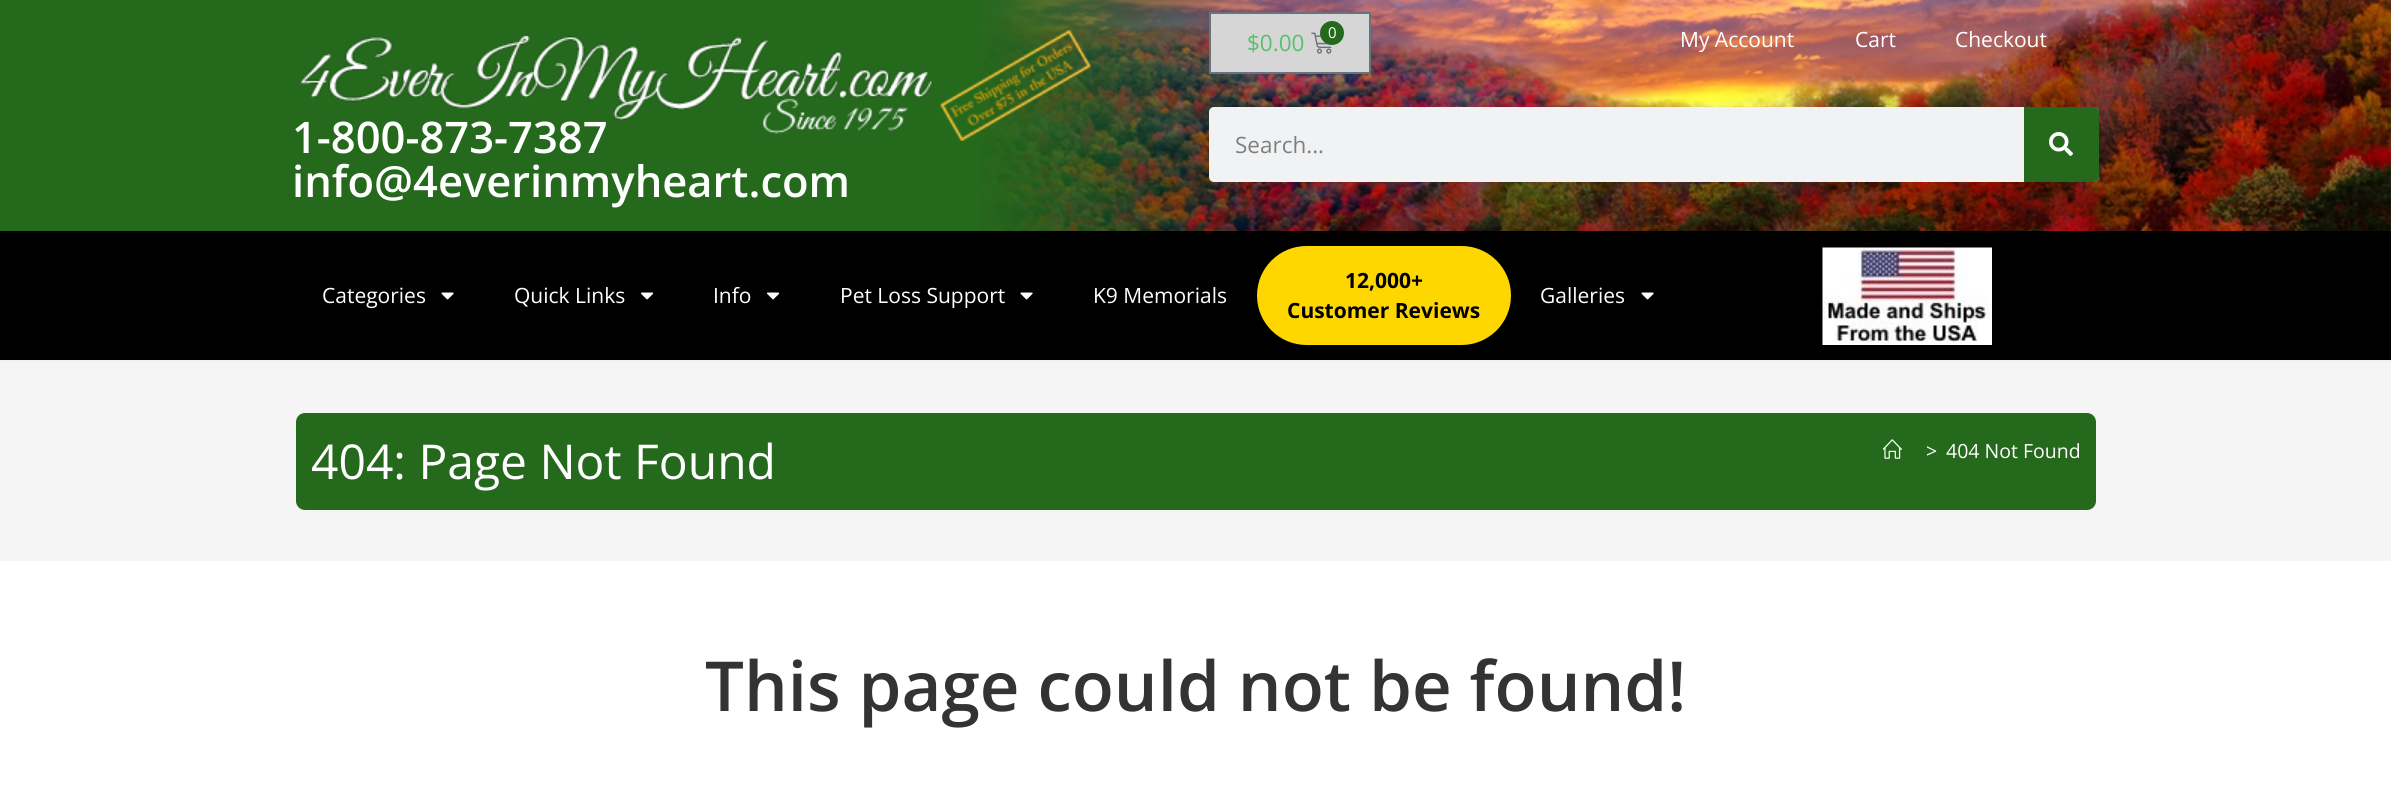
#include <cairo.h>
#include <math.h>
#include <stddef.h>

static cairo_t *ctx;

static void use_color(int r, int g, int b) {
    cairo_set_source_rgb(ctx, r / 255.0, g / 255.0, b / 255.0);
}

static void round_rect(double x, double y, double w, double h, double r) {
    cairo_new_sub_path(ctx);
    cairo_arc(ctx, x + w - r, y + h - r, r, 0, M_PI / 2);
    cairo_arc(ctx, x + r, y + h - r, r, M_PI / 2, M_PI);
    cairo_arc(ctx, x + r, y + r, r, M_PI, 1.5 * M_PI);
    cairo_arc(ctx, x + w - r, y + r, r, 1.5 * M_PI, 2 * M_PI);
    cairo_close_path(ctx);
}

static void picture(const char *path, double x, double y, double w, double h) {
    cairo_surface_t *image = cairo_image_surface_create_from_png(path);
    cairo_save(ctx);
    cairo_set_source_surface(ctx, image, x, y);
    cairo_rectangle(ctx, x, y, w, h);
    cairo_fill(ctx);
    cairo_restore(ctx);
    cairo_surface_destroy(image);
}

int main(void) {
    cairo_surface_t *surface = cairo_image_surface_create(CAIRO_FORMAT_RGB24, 2391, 798);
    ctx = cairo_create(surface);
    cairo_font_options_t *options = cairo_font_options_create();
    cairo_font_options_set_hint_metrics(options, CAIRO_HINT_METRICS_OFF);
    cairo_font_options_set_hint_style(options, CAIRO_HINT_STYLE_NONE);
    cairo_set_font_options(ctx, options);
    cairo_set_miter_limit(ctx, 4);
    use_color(255, 255, 255);
    cairo_paint(ctx);
    use_color(241, 241, 241);
    cairo_rectangle(ctx, 0, 360, 2391, 2);
    cairo_fill(ctx);
    use_color(37, 105, 29);
    cairo_rectangle(ctx, 0, 0, 979, 231);
    cairo_fill(ctx);
    picture("img1.png", 979, 0, 1412, 231);
    use_color(214, 214, 214);
    cairo_rectangle(ctx, 1210, 13, 160, 60);
    cairo_fill_preserve(ctx);
    use_color(105, 114, 125);
    cairo_stroke(ctx);
    cairo_select_font_face(ctx, "Open Sans", CAIRO_FONT_SLANT_NORMAL, CAIRO_FONT_WEIGHT_NORMAL);
    cairo_set_font_size(ctx, 22.5);
    use_color(87, 191, 109);
    cairo_move_to(ctx, 1247, 51);
    cairo_show_text(ctx, "$0.00");
    picture("img2.png", 1311, 32, 21, 22);
    use_color(37, 105, 28);
    cairo_arc(ctx, 1332, 33, 12, 0, 2 * M_PI);
    cairo_fill(ctx);
    cairo_set_font_size(ctx, 15);
    use_color(255, 255, 255);
    cairo_move_to(ctx, 1328, 38);
    cairo_show_text(ctx, "0");
    cairo_set_font_size(ctx, 21);
    cairo_move_to(ctx, 1680, 47);
    cairo_show_text(ctx, "My Account");
    cairo_move_to(ctx, 1855, 47);
    cairo_show_text(ctx, "Cart");
    cairo_move_to(ctx, 1955, 47);
    cairo_show_text(ctx, "Checkout");
    use_color(241, 242, 243);
    round_rect(1209, 107, 890, 75, 5);
    cairo_fill(ctx);
    cairo_set_font_size(ctx, 22.5);
    use_color(127, 127, 128);
    cairo_move_to(ctx, 1235, 153);
    cairo_show_text(ctx, "Search...");
    use_color(37, 105, 28);
    cairo_new_path(ctx);
    cairo_move_to(ctx, 2024, 107);
    cairo_line_to(ctx, 2094, 107);
    cairo_curve_to(ctx, 2097, 107, 2099, 109, 2099, 112);
    cairo_line_to(ctx, 2099, 177);
    cairo_curve_to(ctx, 2099, 180, 2097, 182, 2094, 182);
    cairo_line_to(ctx, 2024, 182);
    cairo_close_path(ctx);
    cairo_fill(ctx);
    picture("img3.png", 2049, 132, 24, 24);
    picture("img4.png", 300, 34, 633, 100);
    picture("img5.png", 940, 30, 151, 111);
    cairo_select_font_face(ctx, "Open Sans SemiBold", CAIRO_FONT_SLANT_NORMAL, CAIRO_FONT_WEIGHT_NORMAL);
    cairo_set_font_size(ctx, 43.5);
    use_color(255, 255, 255);
    cairo_move_to(ctx, 292, 153);
    cairo_show_text(ctx, "1-800-873-7387");
    cairo_move_to(ctx, 292, 197);
    cairo_show_text(ctx, "info@4everinmyheart.com");
    use_color(0, 0, 0);
    cairo_rectangle(ctx, 0, 231, 2391, 129);
    cairo_fill(ctx);
    cairo_select_font_face(ctx, "Open Sans", CAIRO_FONT_SLANT_NORMAL, CAIRO_FONT_WEIGHT_NORMAL);
    cairo_set_font_size(ctx, 21);
    use_color(255, 255, 255);
    cairo_move_to(ctx, 322, 303);
    cairo_show_text(ctx, "Categories");
    picture("img6.png", 441, 292, 13, 8);
    cairo_move_to(ctx, 514, 303);
    cairo_show_text(ctx, "Quick Links");
    picture("img7.png", 641, 292, 13, 8);
    cairo_move_to(ctx, 713, 303);
    cairo_show_text(ctx, "Info");
    picture("img7.png", 767, 292, 13, 8);
    cairo_move_to(ctx, 840, 303);
    cairo_show_text(ctx, "Pet Loss Support");
    picture("img6.png", 1020, 292, 13, 8);
    cairo_move_to(ctx, 1093, 303);
    cairo_show_text(ctx, "K9 Memorials");
    use_color(255, 215, 0);
    round_rect(1257, 246, 254, 99, 49.5);
    cairo_fill(ctx);
    cairo_select_font_face(ctx, "Open Sans", CAIRO_FONT_SLANT_NORMAL, CAIRO_FONT_WEIGHT_BOLD);
    use_color(0, 0, 0);
    cairo_move_to(ctx, 1345, 288);
    cairo_show_text(ctx, "12,000+");
    cairo_move_to(ctx, 1287, 318);
    cairo_show_text(ctx, "Customer Reviews");
    cairo_select_font_face(ctx, "Open Sans", CAIRO_FONT_SLANT_NORMAL, CAIRO_FONT_WEIGHT_NORMAL);
    use_color(255, 255, 255);
    cairo_move_to(ctx, 1540, 303);
    cairo_show_text(ctx, "Galleries");
    picture("img6.png", 1641, 292, 13, 8);
    picture("img8.png", 1822, 247, 170, 98);
    use_color(245, 245, 245);
    cairo_rectangle(ctx, 0, 362, 2391, 199);
    cairo_fill(ctx);
    use_color(37, 105, 28);
    round_rect(296, 413, 1800, 97, 9);
    cairo_fill(ctx);
    cairo_set_font_size(ctx, 48);
    use_color(255, 255, 255);
    cairo_move_to(ctx, 311, 479);
    cairo_show_text(ctx, "404: Page Not Found");
    picture("img9.png", 1883, 439, 19, 20);
    cairo_set_font_size(ctx, 19.5);
    cairo_move_to(ctx, 1926, 458);
    cairo_show_text(ctx, ">");
    cairo_move_to(ctx, 1946, 458);
    cairo_show_text(ctx, "404 Not Found");
    cairo_select_font_face(ctx, "Open Sans SemiBold", CAIRO_FONT_SLANT_NORMAL, CAIRO_FONT_WEIGHT_NORMAL);
    cairo_set_font_size(ctx, 69);
    use_color(51, 51, 51);
    cairo_move_to(ctx, 705, 711);
    cairo_show_text(ctx, "This page could not be found!");
    cairo_surface_write_to_png(surface, "result.png");
    cairo_font_options_destroy(options);
    cairo_destroy(ctx);
    cairo_surface_destroy(surface);
    return 0;
}
